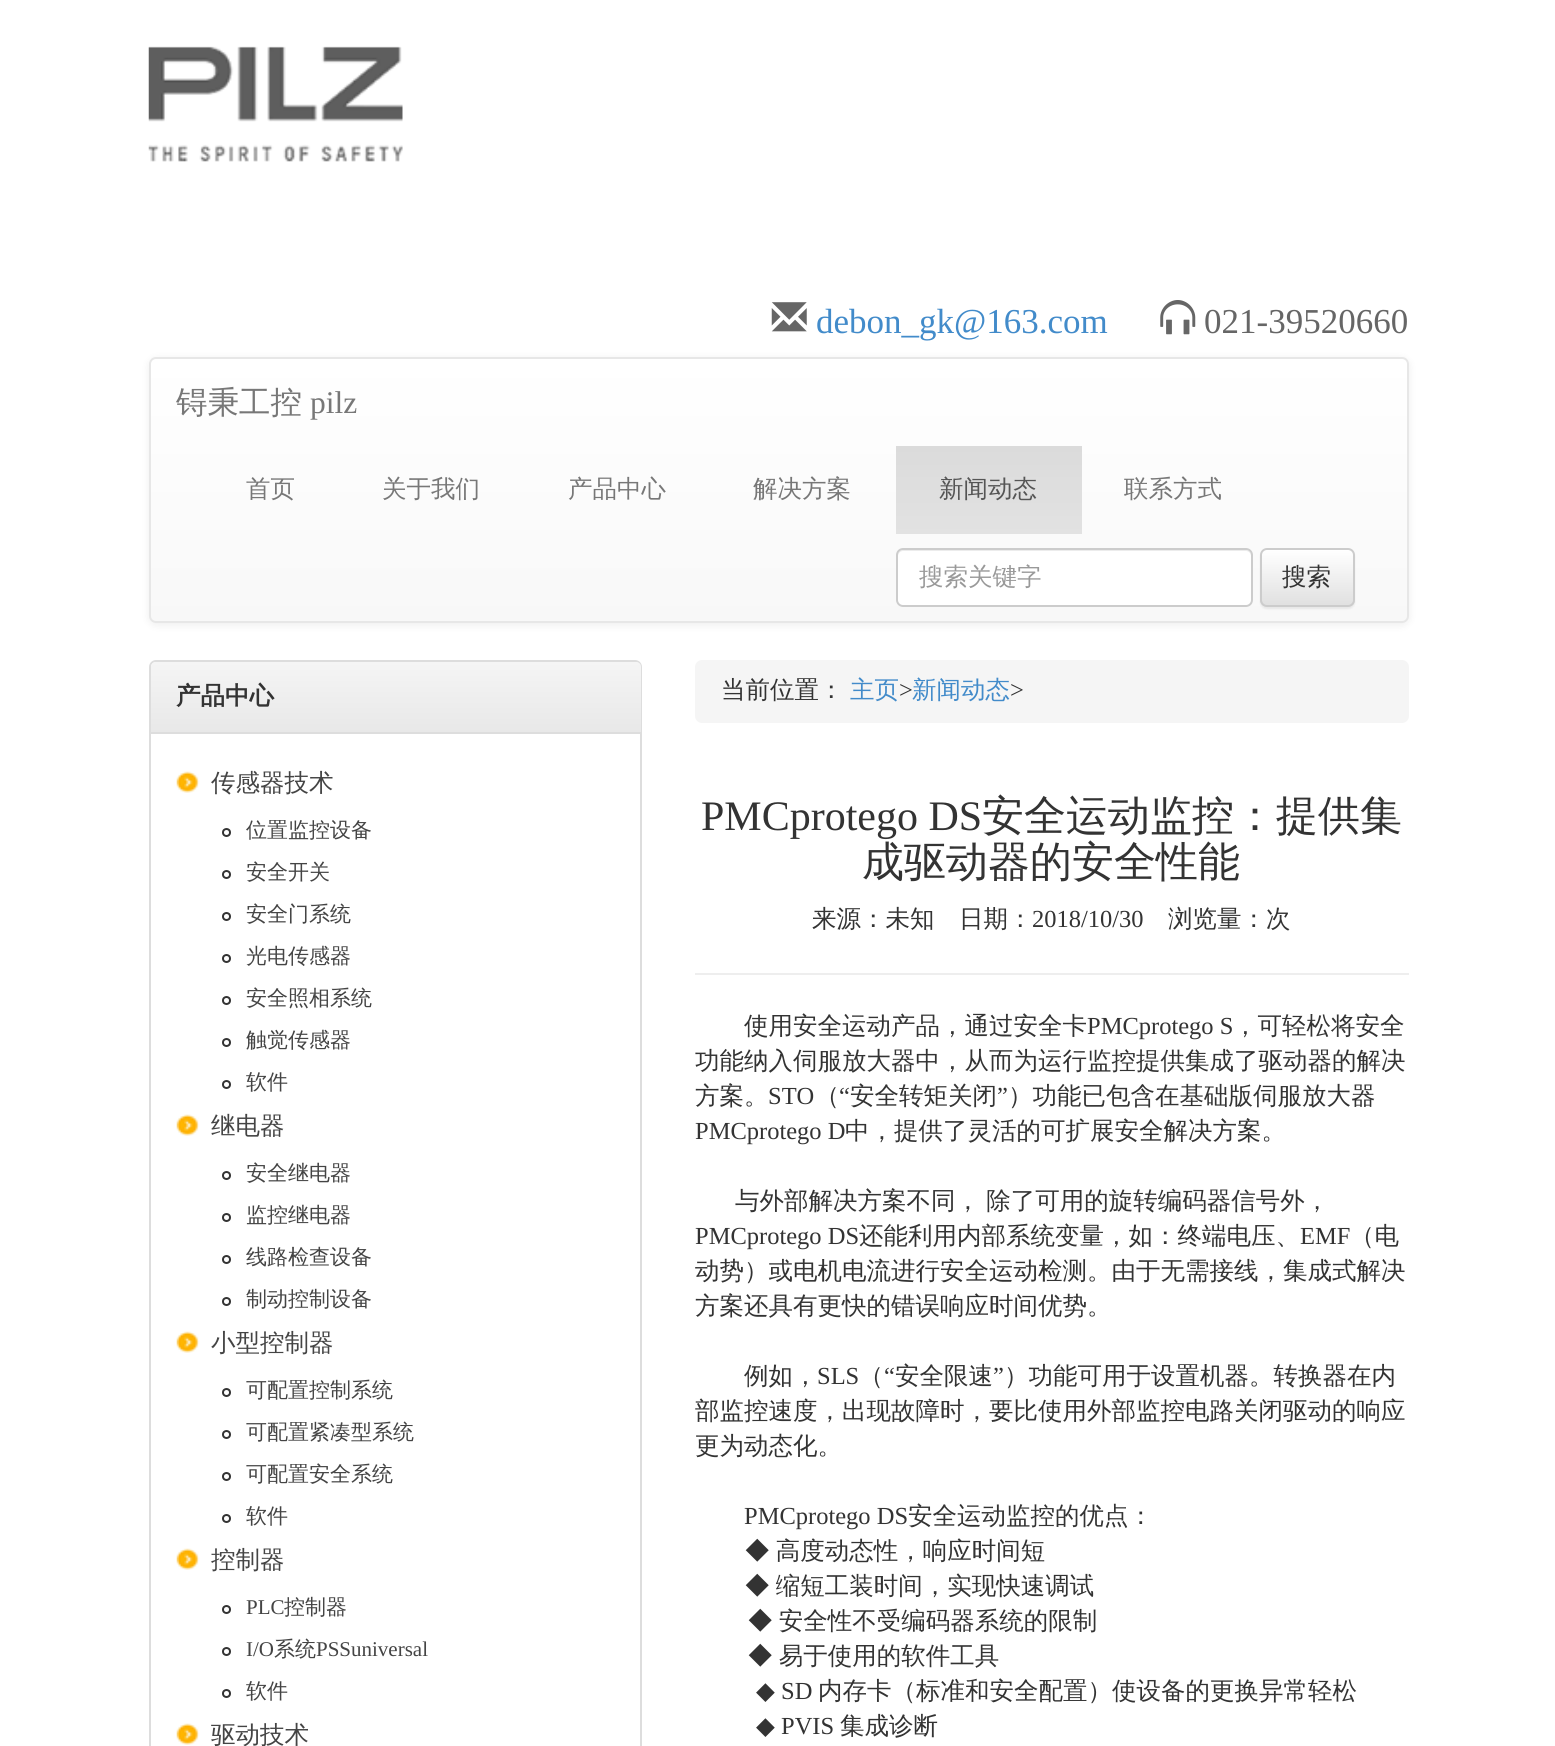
#include <cairo.h>
#include <math.h>
#include <stddef.h>

static cairo_t *ctx;

static void use_color(int r, int g, int b) {
    cairo_set_source_rgb(ctx, r / 255.0, g / 255.0, b / 255.0);
}

static void spaced_text(double x, double y, const char *s, double letter, double word) {
    cairo_move_to(ctx, x, y);
    while (*s) {
        char ch[5] = {0};
        int n = 0;
        do ch[n++] = *s++; while ((*s & 0xC0) == 0x80);
        cairo_show_text(ctx, ch);
        cairo_rel_move_to(ctx, letter + word * (*ch == ' '), 0);
    }
}

static void round_rect(double x, double y, double w, double h, double r) {
    cairo_new_sub_path(ctx);
    cairo_arc(ctx, x + w - r, y + h - r, r, 0, M_PI / 2);
    cairo_arc(ctx, x + r, y + h - r, r, M_PI / 2, M_PI);
    cairo_arc(ctx, x + r, y + r, r, M_PI, 1.5 * M_PI);
    cairo_arc(ctx, x + w - r, y + r, r, 1.5 * M_PI, 2 * M_PI);
    cairo_close_path(ctx);
}

static void shadow(double x, double y, double w, double h, double r, double blur, double alpha) {
    cairo_push_group_with_content(ctx, CAIRO_CONTENT_ALPHA);
    cairo_set_operator(ctx, CAIRO_OPERATOR_SOURCE);
    for (int i = 15; i >= -15 && fmin(w, h) + blur * i / 3 > 0; i -= 2) {
        double e = blur * i / 6;
        cairo_set_source_rgba(ctx, 0, 0, 0, alpha * erfc((i - 1) / 8.5) / 2);
        round_rect(x - e, y - e, w + 2 * e, h + 2 * e, fmax(0, fmin(r + e + blur * .6, fmin(w, h) / 2 + e)));
        cairo_fill(ctx);
    }
    cairo_pattern_t *soft = cairo_pop_group(ctx);
    cairo_mask(ctx, soft);
    cairo_pattern_destroy(soft);
}

static void picture(const char *path, double x, double y, double w, double h) {
    cairo_surface_t *image = cairo_image_surface_create_from_png(path);
    cairo_save(ctx);
    cairo_set_source_surface(ctx, image, x, y);
    cairo_rectangle(ctx, x, y, w, h);
    cairo_fill(ctx);
    cairo_restore(ctx);
    cairo_surface_destroy(image);
}

int main(void) {
    cairo_surface_t *surface = cairo_image_surface_create(CAIRO_FORMAT_RGB24, 1555, 1746);
    ctx = cairo_create(surface);
    cairo_font_options_t *options = cairo_font_options_create();
    cairo_font_options_set_hint_metrics(options, CAIRO_HINT_METRICS_OFF);
    cairo_font_options_set_hint_style(options, CAIRO_HINT_STYLE_NONE);
    cairo_set_font_options(ctx, options);
    cairo_set_miter_limit(ctx, 4);
    cairo_pattern_t *gradient;
    use_color(255, 255, 255);
    cairo_paint(ctx);
    picture("img1.png", 148, 46, 255, 116);
    picture("img2.png", 771, 302, 36, 30);
    cairo_select_font_face(ctx, "Liberation Serif", CAIRO_FONT_SLANT_NORMAL, CAIRO_FONT_WEIGHT_NORMAL);
    cairo_set_font_size(ctx, 35);
    use_color(66, 139, 202);
    cairo_move_to(ctx, 816, 333);
    cairo_show_text(ctx, "debon_gk@163.com");
    picture("img3.png", 1160, 300, 36, 35);
    use_color(102, 102, 102);
    cairo_move_to(ctx, 1204, 333);
    cairo_show_text(ctx, "021-39520660");
    use_color(0, 0, 0);
    shadow(149, 359, 1260, 266, 7, 4.5, 0.07);
    cairo_save(ctx);
    round_rect(149, 357, 1260, 266, 7);
    cairo_clip(ctx);
    gradient = cairo_pattern_create_linear(779, 359, 779, 621);
    cairo_pattern_add_color_stop_rgba(gradient, 0, 1, 1, 1, 1);
    cairo_pattern_add_color_stop_rgba(gradient, 1, 0.973, 0.973, 0.973, 1);
    cairo_set_source(ctx, gradient);
    cairo_pattern_destroy(gradient);
    cairo_rectangle(ctx, 149, 359, 1260, 262);
    cairo_fill(ctx);
    cairo_restore(ctx);
    round_rect(150, 358, 1258, 264, 6);
    use_color(231, 231, 231);
    cairo_stroke(ctx);
    cairo_select_font_face(ctx, "WenQuanYi Zen Hei Medium", CAIRO_FONT_SLANT_NORMAL, CAIRO_FONT_WEIGHT_NORMAL);
    cairo_set_font_size(ctx, 31.5);
    use_color(119, 119, 119);
    cairo_move_to(ctx, 176, 413);
    cairo_show_text(ctx, "锝秉工控");
    cairo_select_font_face(ctx, "Liberation Serif", CAIRO_FONT_SLANT_NORMAL, CAIRO_FONT_WEIGHT_NORMAL);
    cairo_move_to(ctx, 310, 413);
    cairo_show_text(ctx, "pilz");
    cairo_select_font_face(ctx, "WenQuanYi Zen Hei Medium", CAIRO_FONT_SLANT_NORMAL, CAIRO_FONT_WEIGHT_NORMAL);
    cairo_set_font_size(ctx, 24.5);
    cairo_move_to(ctx, 246, 497);
    cairo_show_text(ctx, "首页");
    cairo_move_to(ctx, 382, 497);
    cairo_show_text(ctx, "关于我们");
    cairo_move_to(ctx, 568, 497);
    cairo_show_text(ctx, "产品中心");
    cairo_move_to(ctx, 753, 497);
    cairo_show_text(ctx, "解决方案");
    gradient = cairo_pattern_create_linear(989, 446, 989, 534);
    cairo_pattern_add_color_stop_rgba(gradient, 0, 0.859, 0.859, 0.859, 1);
    cairo_pattern_add_color_stop_rgba(gradient, 1, 0.886, 0.886, 0.886, 1);
    cairo_set_source(ctx, gradient);
    cairo_pattern_destroy(gradient);
    cairo_rectangle(ctx, 896, 446, 186, 88);
    cairo_fill(ctx);
    use_color(85, 85, 85);
    cairo_move_to(ctx, 939, 497);
    cairo_show_text(ctx, "新闻动态");
    use_color(119, 119, 119);
    cairo_move_to(ctx, 1124, 497);
    cairo_show_text(ctx, "联系方式");
    use_color(255, 255, 255);
    round_rect(896, 548, 357, 59, 7);
    cairo_fill(ctx);
    use_color(236, 236, 236);
    cairo_new_path(ctx);
    cairo_move_to(ctx, 903, 551);
    cairo_line_to(ctx, 1246, 551);
    cairo_curve_to(ctx, 1249, 551, 1251, 554, 1251, 556);
    cairo_line_to(ctx, 1251, 555);
    cairo_curve_to(ctx, 1251, 552, 1249, 550, 1246, 550);
    cairo_line_to(ctx, 903, 550);
    cairo_curve_to(ctx, 900, 550, 898, 552, 898, 555);
    cairo_line_to(ctx, 898, 556);
    cairo_curve_to(ctx, 898, 554, 900, 551, 903, 551);
    cairo_close_path(ctx);
    cairo_fill(ctx);
    round_rect(897, 549, 355, 57, 6);
    use_color(204, 204, 204);
    cairo_stroke(ctx);
    use_color(153, 153, 153);
    cairo_move_to(ctx, 919, 585);
    cairo_show_text(ctx, "搜索关键字");
    use_color(0, 0, 0);
    shadow(1260, 550, 95, 59, 7, 1, 0.07);
    cairo_save(ctx);
    round_rect(1260, 548, 95, 59, 7);
    cairo_clip(ctx);
    gradient = cairo_pattern_create_linear(1307, 550, 1307, 606);
    cairo_pattern_add_color_stop_rgba(gradient, 0, 1, 1, 1, 1);
    cairo_pattern_add_color_stop_rgba(gradient, 1, 0.878, 0.878, 0.878, 1);
    cairo_set_source(ctx, gradient);
    cairo_pattern_destroy(gradient);
    cairo_rectangle(ctx, 1260, 550, 95, 56);
    cairo_fill(ctx);
    cairo_restore(ctx);
    round_rect(1261, 549, 93, 57, 6);
    use_color(204, 204, 204);
    cairo_stroke(ctx);
    use_color(51, 51, 51);
    cairo_move_to(ctx, 1282, 585);
    cairo_show_text(ctx, "搜索");
    round_rect(150, 661, 491, 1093, 6);
    use_color(221, 221, 221);
    cairo_stroke(ctx);
    gradient = cairo_pattern_create_linear(396, 662, 396, 732);
    cairo_pattern_add_color_stop_rgba(gradient, 0, 0.961, 0.961, 0.961, 1);
    cairo_pattern_add_color_stop_rgba(gradient, 1, 0.91, 0.91, 0.91, 1);
    cairo_set_source(ctx, gradient);
    cairo_pattern_destroy(gradient);
    cairo_new_path(ctx);
    cairo_move_to(ctx, 156, 662);
    cairo_line_to(ctx, 636, 662);
    cairo_curve_to(ctx, 639, 662, 641, 664, 641, 667);
    cairo_line_to(ctx, 641, 732);
    cairo_line_to(ctx, 151, 732);
    cairo_line_to(ctx, 151, 667);
    cairo_curve_to(ctx, 151, 664, 153, 662, 156, 662);
    cairo_close_path(ctx);
    cairo_fill(ctx);
    use_color(221, 221, 221);
    cairo_rectangle(ctx, 151, 732, 490, 2);
    cairo_fill(ctx);
    cairo_select_font_face(ctx, "WenQuanYi Zen Hei", CAIRO_FONT_SLANT_NORMAL, CAIRO_FONT_WEIGHT_BOLD);
    use_color(51, 51, 51);
    cairo_move_to(ctx, 176, 704);
    cairo_show_text(ctx, "产品中心");
    picture("img4.png", 176, 771, 24, 22);
    cairo_select_font_face(ctx, "WenQuanYi Zen Hei Medium", CAIRO_FONT_SLANT_NORMAL, CAIRO_FONT_WEIGHT_NORMAL);
    use_color(68, 68, 68);
    cairo_move_to(ctx, 211, 791);
    cairo_show_text(ctx, "传感器技术");
    cairo_new_path(ctx);
    cairo_arc(ctx, 226.5, 832.5, 3.5, 0, 2 * M_PI);
    use_color(51, 51, 51);
    cairo_stroke(ctx);
    cairo_set_font_size(ctx, 21);
    use_color(68, 68, 68);
    cairo_move_to(ctx, 246, 837);
    cairo_show_text(ctx, "位置监控设备");
    cairo_new_path(ctx);
    cairo_arc(ctx, 226.5, 874.5, 3.5, 0, 2 * M_PI);
    use_color(51, 51, 51);
    cairo_stroke(ctx);
    use_color(68, 68, 68);
    cairo_move_to(ctx, 246, 879);
    cairo_show_text(ctx, "安全开关");
    cairo_new_path(ctx);
    cairo_arc(ctx, 226.5, 916.5, 3.5, 0, 2 * M_PI);
    use_color(51, 51, 51);
    cairo_stroke(ctx);
    use_color(68, 68, 68);
    cairo_move_to(ctx, 246, 921);
    cairo_show_text(ctx, "安全门系统");
    cairo_new_path(ctx);
    cairo_arc(ctx, 226.5, 958.5, 3.5, 0, 2 * M_PI);
    use_color(51, 51, 51);
    cairo_stroke(ctx);
    use_color(68, 68, 68);
    cairo_move_to(ctx, 246, 963);
    cairo_show_text(ctx, "光电传感器");
    cairo_new_path(ctx);
    cairo_arc(ctx, 226.5, 1000.5, 3.5, 0, 2 * M_PI);
    use_color(51, 51, 51);
    cairo_stroke(ctx);
    use_color(68, 68, 68);
    cairo_move_to(ctx, 246, 1005);
    cairo_show_text(ctx, "安全照相系统");
    cairo_new_path(ctx);
    cairo_arc(ctx, 226.5, 1042.5, 3.5, 0, 2 * M_PI);
    use_color(51, 51, 51);
    cairo_stroke(ctx);
    use_color(68, 68, 68);
    cairo_move_to(ctx, 246, 1047);
    cairo_show_text(ctx, "触觉传感器");
    cairo_new_path(ctx);
    cairo_arc(ctx, 226.5, 1084.5, 3.5, 0, 2 * M_PI);
    use_color(51, 51, 51);
    cairo_stroke(ctx);
    use_color(68, 68, 68);
    cairo_move_to(ctx, 246, 1089);
    cairo_show_text(ctx, "软件");
    picture("img4.png", 176, 1114, 24, 22);
    cairo_set_font_size(ctx, 24.5);
    cairo_move_to(ctx, 211, 1134);
    cairo_show_text(ctx, "继电器");
    cairo_new_path(ctx);
    cairo_arc(ctx, 226.5, 1175.5, 3.5, 0, 2 * M_PI);
    use_color(51, 51, 51);
    cairo_stroke(ctx);
    cairo_set_font_size(ctx, 21);
    use_color(68, 68, 68);
    cairo_move_to(ctx, 246, 1180);
    cairo_show_text(ctx, "安全继电器");
    cairo_new_path(ctx);
    cairo_arc(ctx, 226.5, 1217.5, 3.5, 0, 2 * M_PI);
    use_color(51, 51, 51);
    cairo_stroke(ctx);
    use_color(68, 68, 68);
    cairo_move_to(ctx, 246, 1222);
    cairo_show_text(ctx, "监控继电器");
    cairo_new_path(ctx);
    cairo_arc(ctx, 226.5, 1259.5, 3.5, 0, 2 * M_PI);
    use_color(51, 51, 51);
    cairo_stroke(ctx);
    use_color(68, 68, 68);
    cairo_move_to(ctx, 246, 1264);
    cairo_show_text(ctx, "线路检查设备");
    cairo_new_path(ctx);
    cairo_arc(ctx, 226.5, 1301.5, 3.5, 0, 2 * M_PI);
    use_color(51, 51, 51);
    cairo_stroke(ctx);
    use_color(68, 68, 68);
    cairo_move_to(ctx, 246, 1306);
    cairo_show_text(ctx, "制动控制设备");
    picture("img4.png", 176, 1331, 24, 22);
    cairo_set_font_size(ctx, 24.5);
    cairo_move_to(ctx, 211, 1351);
    cairo_show_text(ctx, "小型控制器");
    cairo_new_path(ctx);
    cairo_arc(ctx, 226.5, 1392.5, 3.5, 0, 2 * M_PI);
    use_color(51, 51, 51);
    cairo_stroke(ctx);
    cairo_set_font_size(ctx, 21);
    use_color(68, 68, 68);
    cairo_move_to(ctx, 246, 1397);
    cairo_show_text(ctx, "可配置控制系统");
    cairo_new_path(ctx);
    cairo_arc(ctx, 226.5, 1434.5, 3.5, 0, 2 * M_PI);
    use_color(51, 51, 51);
    cairo_stroke(ctx);
    use_color(68, 68, 68);
    cairo_move_to(ctx, 246, 1439);
    cairo_show_text(ctx, "可配置紧凑型系统");
    cairo_new_path(ctx);
    cairo_arc(ctx, 226.5, 1476.5, 3.5, 0, 2 * M_PI);
    use_color(51, 51, 51);
    cairo_stroke(ctx);
    use_color(68, 68, 68);
    cairo_move_to(ctx, 246, 1481);
    cairo_show_text(ctx, "可配置安全系统");
    cairo_new_path(ctx);
    cairo_arc(ctx, 226.5, 1518.5, 3.5, 0, 2 * M_PI);
    use_color(51, 51, 51);
    cairo_stroke(ctx);
    use_color(68, 68, 68);
    cairo_move_to(ctx, 246, 1523);
    cairo_show_text(ctx, "软件");
    picture("img4.png", 176, 1548, 24, 22);
    cairo_set_font_size(ctx, 24.5);
    cairo_move_to(ctx, 211, 1568);
    cairo_show_text(ctx, "控制器");
    cairo_new_path(ctx);
    cairo_arc(ctx, 226.5, 1609.5, 3.5, 0, 2 * M_PI);
    use_color(51, 51, 51);
    cairo_stroke(ctx);
    cairo_select_font_face(ctx, "Liberation Serif", CAIRO_FONT_SLANT_NORMAL, CAIRO_FONT_WEIGHT_NORMAL);
    cairo_set_font_size(ctx, 21);
    use_color(68, 68, 68);
    cairo_move_to(ctx, 246, 1614);
    cairo_show_text(ctx, "PLC");
    cairo_select_font_face(ctx, "WenQuanYi Zen Hei Medium", CAIRO_FONT_SLANT_NORMAL, CAIRO_FONT_WEIGHT_NORMAL);
    cairo_move_to(ctx, 284, 1614);
    cairo_show_text(ctx, "控制器");
    cairo_new_path(ctx);
    cairo_arc(ctx, 226.5, 1651.5, 3.5, 0, 2 * M_PI);
    use_color(51, 51, 51);
    cairo_stroke(ctx);
    cairo_select_font_face(ctx, "Liberation Serif", CAIRO_FONT_SLANT_NORMAL, CAIRO_FONT_WEIGHT_NORMAL);
    use_color(68, 68, 68);
    cairo_move_to(ctx, 246, 1656);
    cairo_show_text(ctx, "I/O");
    cairo_select_font_face(ctx, "WenQuanYi Zen Hei Medium", CAIRO_FONT_SLANT_NORMAL, CAIRO_FONT_WEIGHT_NORMAL);
    cairo_move_to(ctx, 274, 1656);
    cairo_show_text(ctx, "系统");
    cairo_select_font_face(ctx, "Liberation Serif", CAIRO_FONT_SLANT_NORMAL, CAIRO_FONT_WEIGHT_NORMAL);
    cairo_move_to(ctx, 316, 1656);
    cairo_show_text(ctx, "PSSuniversal");
    cairo_new_path(ctx);
    cairo_arc(ctx, 226.5, 1693.5, 3.5, 0, 2 * M_PI);
    use_color(51, 51, 51);
    cairo_stroke(ctx);
    cairo_select_font_face(ctx, "WenQuanYi Zen Hei Medium", CAIRO_FONT_SLANT_NORMAL, CAIRO_FONT_WEIGHT_NORMAL);
    use_color(68, 68, 68);
    cairo_move_to(ctx, 246, 1698);
    cairo_show_text(ctx, "软件");
    picture("img4.png", 176, 1723, 24, 22);
    cairo_set_font_size(ctx, 24.5);
    cairo_move_to(ctx, 211, 1743);
    cairo_show_text(ctx, "驱动技术");
    use_color(245, 245, 245);
    round_rect(695, 660, 714, 63, 7);
    cairo_fill(ctx);
    use_color(51, 51, 51);
    cairo_move_to(ctx, 721, 698);
    cairo_show_text(ctx, "当前位置：");
    use_color(66, 139, 202);
    cairo_move_to(ctx, 850, 698);
    cairo_show_text(ctx, "主页");
    cairo_select_font_face(ctx, "Liberation Serif", CAIRO_FONT_SLANT_NORMAL, CAIRO_FONT_WEIGHT_NORMAL);
    use_color(51, 51, 51);
    cairo_move_to(ctx, 899, 698);
    cairo_show_text(ctx, ">");
    cairo_select_font_face(ctx, "WenQuanYi Zen Hei Medium", CAIRO_FONT_SLANT_NORMAL, CAIRO_FONT_WEIGHT_NORMAL);
    use_color(66, 139, 202);
    cairo_move_to(ctx, 912, 698);
    cairo_show_text(ctx, "新闻动态");
    cairo_select_font_face(ctx, "Liberation Serif", CAIRO_FONT_SLANT_NORMAL, CAIRO_FONT_WEIGHT_NORMAL);
    use_color(51, 51, 51);
    cairo_move_to(ctx, 1010, 698);
    cairo_show_text(ctx, ">");
    cairo_set_font_size(ctx, 42);
    cairo_move_to(ctx, 701, 830);
    cairo_show_text(ctx, "PMCprotego DS");
    cairo_select_font_face(ctx, "WenQuanYi Zen Hei Medium", CAIRO_FONT_SLANT_NORMAL, CAIRO_FONT_WEIGHT_NORMAL);
    cairo_move_to(ctx, 982, 830);
    cairo_show_text(ctx, "安全运动监控：提供集");
    cairo_move_to(ctx, 862, 876);
    cairo_show_text(ctx, "成驱动器的安全性能");
    cairo_set_font_size(ctx, 24.5);
    cairo_move_to(ctx, 812, 927);
    cairo_show_text(ctx, "来源：未知");
    cairo_move_to(ctx, 959, 927);
    cairo_show_text(ctx, "日期：");
    cairo_select_font_face(ctx, "Liberation Serif", CAIRO_FONT_SLANT_NORMAL, CAIRO_FONT_WEIGHT_NORMAL);
    cairo_move_to(ctx, 1032, 927);
    cairo_show_text(ctx, "2018/10/30");
    cairo_select_font_face(ctx, "WenQuanYi Zen Hei Medium", CAIRO_FONT_SLANT_NORMAL, CAIRO_FONT_WEIGHT_NORMAL);
    cairo_move_to(ctx, 1168, 927);
    cairo_show_text(ctx, "浏览量：次");
    use_color(238, 238, 238);
    cairo_rectangle(ctx, 695, 973, 714, 2);
    cairo_fill(ctx);
    use_color(51, 51, 51);
    cairo_move_to(ctx, 744, 1034);
    cairo_show_text(ctx, "使用安全运动产品，通过安全卡");
    cairo_select_font_face(ctx, "Liberation Serif", CAIRO_FONT_SLANT_NORMAL, CAIRO_FONT_WEIGHT_NORMAL);
    cairo_move_to(ctx, 1087, 1034);
    cairo_show_text(ctx, "PMCprotego S");
    cairo_select_font_face(ctx, "WenQuanYi Zen Hei Medium", CAIRO_FONT_SLANT_NORMAL, CAIRO_FONT_WEIGHT_NORMAL);
    cairo_move_to(ctx, 1233, 1034);
    cairo_show_text(ctx, "，可轻松将安全");
    cairo_move_to(ctx, 695, 1069);
    cairo_show_text(ctx, "功能纳入伺服放大器中，从而为运行监控提供集成了驱动器的解决");
    cairo_move_to(ctx, 695, 1104);
    cairo_show_text(ctx, "方案。");
    cairo_select_font_face(ctx, "Liberation Serif", CAIRO_FONT_SLANT_NORMAL, CAIRO_FONT_WEIGHT_NORMAL);
    cairo_move_to(ctx, 768, 1104);
    cairo_show_text(ctx, "STO");
    cairo_select_font_face(ctx, "WenQuanYi Zen Hei Medium", CAIRO_FONT_SLANT_NORMAL, CAIRO_FONT_WEIGHT_NORMAL);
    cairo_move_to(ctx, 815, 1104);
    cairo_show_text(ctx, "（");
    cairo_select_font_face(ctx, "Liberation Serif", CAIRO_FONT_SLANT_NORMAL, CAIRO_FONT_WEIGHT_NORMAL);
    cairo_move_to(ctx, 839, 1104);
    cairo_show_text(ctx, "“");
    cairo_select_font_face(ctx, "WenQuanYi Zen Hei Medium", CAIRO_FONT_SLANT_NORMAL, CAIRO_FONT_WEIGHT_NORMAL);
    cairo_move_to(ctx, 850, 1104);
    cairo_show_text(ctx, "安全转矩关闭");
    cairo_select_font_face(ctx, "Liberation Serif", CAIRO_FONT_SLANT_NORMAL, CAIRO_FONT_WEIGHT_NORMAL);
    cairo_move_to(ctx, 997, 1104);
    cairo_show_text(ctx, "”");
    cairo_select_font_face(ctx, "WenQuanYi Zen Hei Medium", CAIRO_FONT_SLANT_NORMAL, CAIRO_FONT_WEIGHT_NORMAL);
    cairo_move_to(ctx, 1008, 1104);
    cairo_show_text(ctx, "）功能已包含在基础版伺服放大器");
    cairo_select_font_face(ctx, "Liberation Serif", CAIRO_FONT_SLANT_NORMAL, CAIRO_FONT_WEIGHT_NORMAL);
    cairo_move_to(ctx, 695, 1139);
    cairo_show_text(ctx, "PMCprotego D");
    cairo_select_font_face(ctx, "WenQuanYi Zen Hei Medium", CAIRO_FONT_SLANT_NORMAL, CAIRO_FONT_WEIGHT_NORMAL);
    cairo_move_to(ctx, 845, 1139);
    cairo_show_text(ctx, "中，提供了灵活的可扩展安全解决方案。");
    spaced_text(735, 1209, "与外部解决方案不同， 除了可用的旋转编码器信号外，", 0, -1);
    cairo_select_font_face(ctx, "Liberation Serif", CAIRO_FONT_SLANT_NORMAL, CAIRO_FONT_WEIGHT_NORMAL);
    cairo_move_to(ctx, 695, 1244);
    cairo_show_text(ctx, "PMCprotego DS");
    cairo_select_font_face(ctx, "WenQuanYi Zen Hei Medium", CAIRO_FONT_SLANT_NORMAL, CAIRO_FONT_WEIGHT_NORMAL);
    cairo_move_to(ctx, 859, 1244);
    cairo_show_text(ctx, "还能利用内部系统变量，如：终端电压、");
    cairo_select_font_face(ctx, "Liberation Serif", CAIRO_FONT_SLANT_NORMAL, CAIRO_FONT_WEIGHT_NORMAL);
    cairo_move_to(ctx, 1300, 1244);
    cairo_show_text(ctx, "EMF");
    cairo_select_font_face(ctx, "WenQuanYi Zen Hei Medium", CAIRO_FONT_SLANT_NORMAL, CAIRO_FONT_WEIGHT_NORMAL);
    cairo_move_to(ctx, 1350, 1244);
    cairo_show_text(ctx, "（电");
    cairo_move_to(ctx, 695, 1279);
    cairo_show_text(ctx, "动势）或电机电流进行安全运动检测。由于无需接线，集成式解决");
    cairo_move_to(ctx, 695, 1314);
    cairo_show_text(ctx, "方案还具有更快的错误响应时间优势。");
    cairo_move_to(ctx, 744, 1384);
    cairo_show_text(ctx, "例如，");
    cairo_select_font_face(ctx, "Liberation Serif", CAIRO_FONT_SLANT_NORMAL, CAIRO_FONT_WEIGHT_NORMAL);
    cairo_move_to(ctx, 817, 1384);
    cairo_show_text(ctx, "SLS");
    cairo_select_font_face(ctx, "WenQuanYi Zen Hei Medium", CAIRO_FONT_SLANT_NORMAL, CAIRO_FONT_WEIGHT_NORMAL);
    cairo_move_to(ctx, 859, 1384);
    cairo_show_text(ctx, "（");
    cairo_select_font_face(ctx, "Liberation Serif", CAIRO_FONT_SLANT_NORMAL, CAIRO_FONT_WEIGHT_NORMAL);
    cairo_move_to(ctx, 884, 1384);
    cairo_show_text(ctx, "“");
    cairo_select_font_face(ctx, "WenQuanYi Zen Hei Medium", CAIRO_FONT_SLANT_NORMAL, CAIRO_FONT_WEIGHT_NORMAL);
    cairo_move_to(ctx, 895, 1384);
    cairo_show_text(ctx, "安全限速");
    cairo_select_font_face(ctx, "Liberation Serif", CAIRO_FONT_SLANT_NORMAL, CAIRO_FONT_WEIGHT_NORMAL);
    cairo_move_to(ctx, 993, 1384);
    cairo_show_text(ctx, "”");
    cairo_select_font_face(ctx, "WenQuanYi Zen Hei Medium", CAIRO_FONT_SLANT_NORMAL, CAIRO_FONT_WEIGHT_NORMAL);
    cairo_move_to(ctx, 1004, 1384);
    cairo_show_text(ctx, "）功能可用于设置机器。转换器在内");
    cairo_move_to(ctx, 695, 1419);
    cairo_show_text(ctx, "部监控速度，出现故障时，要比使用外部监控电路关闭驱动的响应");
    cairo_move_to(ctx, 695, 1454);
    cairo_show_text(ctx, "更为动态化。");
    cairo_select_font_face(ctx, "Liberation Serif", CAIRO_FONT_SLANT_NORMAL, CAIRO_FONT_WEIGHT_NORMAL);
    cairo_move_to(ctx, 744, 1524);
    cairo_show_text(ctx, "PMCprotego DS");
    cairo_select_font_face(ctx, "WenQuanYi Zen Hei Medium", CAIRO_FONT_SLANT_NORMAL, CAIRO_FONT_WEIGHT_NORMAL);
    cairo_move_to(ctx, 908, 1524);
    cairo_show_text(ctx, "安全运动监控的优点：");
    spaced_text(745, 1559, "◆ 高度动态性，响应时间短", 0, -1);
    spaced_text(745, 1594, "◆ 缩短工装时间，实现快速调试", 0, -1);
    spaced_text(748, 1629, "◆ 安全性不受编码器系统的限制", 0, -1);
    spaced_text(748, 1664, "◆ 易于使用的软件工具", 0, -1);
    cairo_select_font_face(ctx, "DejaVu Sans", CAIRO_FONT_SLANT_NORMAL, CAIRO_FONT_WEIGHT_NORMAL);
    cairo_move_to(ctx, 756, 1699);
    cairo_show_text(ctx, "◆");
    cairo_select_font_face(ctx, "Liberation Serif", CAIRO_FONT_SLANT_NORMAL, CAIRO_FONT_WEIGHT_NORMAL);
    cairo_move_to(ctx, 781, 1699);
    cairo_show_text(ctx, "SD");
    cairo_select_font_face(ctx, "WenQuanYi Zen Hei Medium", CAIRO_FONT_SLANT_NORMAL, CAIRO_FONT_WEIGHT_NORMAL);
    cairo_move_to(ctx, 818, 1699);
    cairo_show_text(ctx, "内存卡（标准和安全配置）使设备的更换异常轻松");
    cairo_select_font_face(ctx, "DejaVu Sans", CAIRO_FONT_SLANT_NORMAL, CAIRO_FONT_WEIGHT_NORMAL);
    cairo_move_to(ctx, 756, 1734);
    cairo_show_text(ctx, "◆");
    cairo_select_font_face(ctx, "Liberation Serif", CAIRO_FONT_SLANT_NORMAL, CAIRO_FONT_WEIGHT_NORMAL);
    cairo_move_to(ctx, 781, 1734);
    cairo_show_text(ctx, "PVIS");
    cairo_select_font_face(ctx, "WenQuanYi Zen Hei Medium", CAIRO_FONT_SLANT_NORMAL, CAIRO_FONT_WEIGHT_NORMAL);
    cairo_move_to(ctx, 840, 1734);
    cairo_show_text(ctx, "集成诊断");
    cairo_surface_write_to_png(surface, "result.png");
    cairo_font_options_destroy(options);
    cairo_destroy(ctx);
    cairo_surface_destroy(surface);
    return 0;
}
